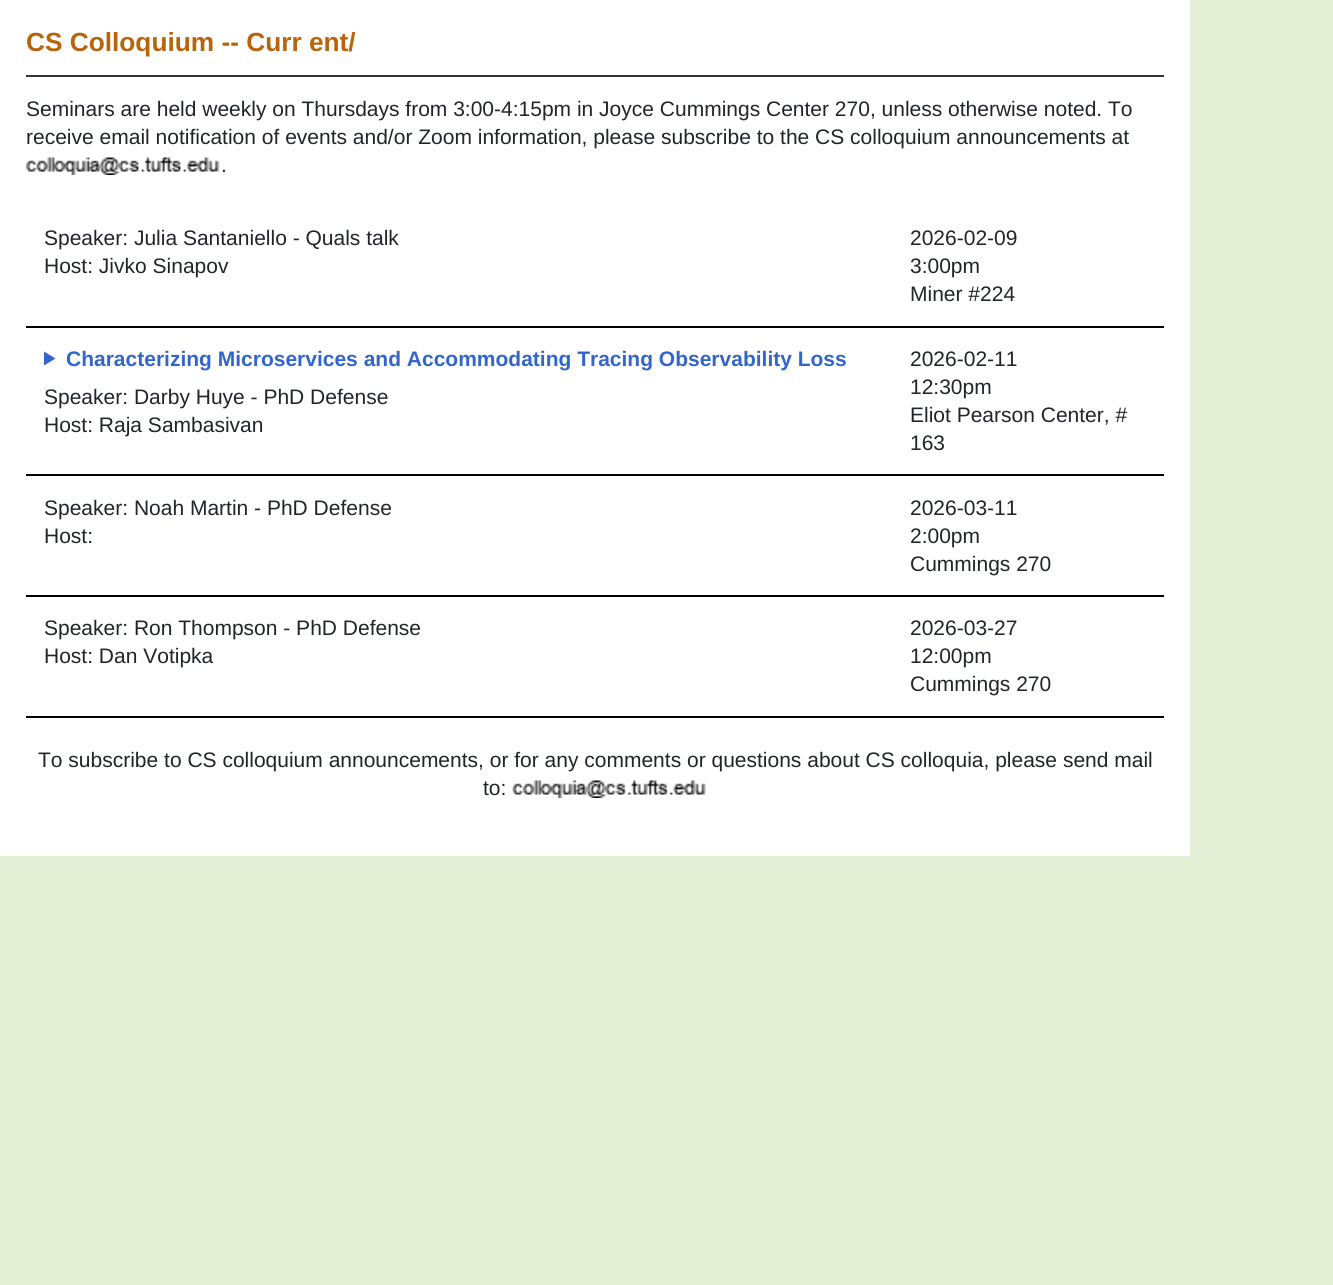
#include <cairo.h>
#include <math.h>
#include <stddef.h>

static cairo_t *ctx;

static void use_color(int r, int g, int b) {
    cairo_set_source_rgb(ctx, r / 255.0, g / 255.0, b / 255.0);
}

static void picture(const char *path, double x, double y, double w, double h) {
    cairo_surface_t *image = cairo_image_surface_create_from_png(path);
    cairo_save(ctx);
    cairo_set_source_surface(ctx, image, x, y);
    cairo_rectangle(ctx, x, y, w, h);
    cairo_fill(ctx);
    cairo_restore(ctx);
    cairo_surface_destroy(image);
}

int main(void) {
    cairo_surface_t *surface = cairo_image_surface_create(CAIRO_FORMAT_RGB24, 1333, 1285);
    ctx = cairo_create(surface);
    cairo_font_options_t *options = cairo_font_options_create();
    cairo_font_options_set_hint_metrics(options, CAIRO_HINT_METRICS_OFF);
    cairo_font_options_set_hint_style(options, CAIRO_HINT_STYLE_NONE);
    cairo_set_font_options(ctx, options);
    cairo_set_miter_limit(ctx, 4);
    use_color(229, 239, 213);
    cairo_paint(ctx);
    use_color(255, 255, 255);
    cairo_rectangle(ctx, 0, 0, 1190, 856);
    cairo_fill(ctx);
    use_color(51, 51, 51);
    cairo_rectangle(ctx, 26, 75, 1138, 2);
    cairo_fill(ctx);
    cairo_select_font_face(ctx, "Liberation Sans", CAIRO_FONT_SLANT_NORMAL, CAIRO_FONT_WEIGHT_BOLD);
    cairo_set_font_size(ctx, 26.25);
    use_color(183, 100, 10);
    cairo_move_to(ctx, 26, 51);
    cairo_show_text(ctx, "CS Colloquium -- Curr ent/");
    cairo_select_font_face(ctx, "Liberation Sans", CAIRO_FONT_SLANT_NORMAL, CAIRO_FONT_WEIGHT_NORMAL);
    cairo_set_font_size(ctx, 21);
    use_color(33, 37, 41);
    cairo_move_to(ctx, 26, 116);
    cairo_show_text(ctx, "Seminars are held weekly on Thursdays from 3:00-4:15pm in Joyce Cummings Center 270, unless otherwise noted. To");
    cairo_move_to(ctx, 26, 144);
    cairo_show_text(ctx, "receive email notification of events and/or Zoom information, please subscribe to the CS colloquium announcements at");
    picture("img1.png", 26, 157, 194, 18);
    cairo_move_to(ctx, 221, 172);
    cairo_show_text(ctx, ".");
    use_color(0, 0, 0);
    cairo_rectangle(ctx, 26, 326, 1138, 2);
    cairo_fill(ctx);
    use_color(33, 37, 41);
    cairo_move_to(ctx, 44, 245);
    cairo_show_text(ctx, "Speaker: Julia Santaniello - Quals talk");
    cairo_move_to(ctx, 44, 273);
    cairo_show_text(ctx, "Host: Jivko Sinapov");
    cairo_move_to(ctx, 910, 245);
    cairo_show_text(ctx, "2026-02-09");
    cairo_move_to(ctx, 910, 273);
    cairo_show_text(ctx, "3:00pm");
    cairo_move_to(ctx, 910, 301);
    cairo_show_text(ctx, "Miner #224");
    use_color(0, 0, 0);
    cairo_rectangle(ctx, 26, 474, 1138, 2);
    cairo_fill(ctx);
    use_color(51, 102, 204);
    cairo_new_path(ctx);
    cairo_move_to(ctx, 44, 351.5);
    cairo_line_to(ctx, 55.5, 358.5);
    cairo_line_to(ctx, 44, 365.5);
    cairo_close_path(ctx);
    cairo_fill(ctx);
    cairo_select_font_face(ctx, "Liberation Sans", CAIRO_FONT_SLANT_NORMAL, CAIRO_FONT_WEIGHT_BOLD);
    cairo_move_to(ctx, 66, 366);
    cairo_show_text(ctx, "Characterizing Microservices and Accommodating Tracing Observability Loss");
    cairo_select_font_face(ctx, "Liberation Sans", CAIRO_FONT_SLANT_NORMAL, CAIRO_FONT_WEIGHT_NORMAL);
    use_color(33, 37, 41);
    cairo_move_to(ctx, 44, 404);
    cairo_show_text(ctx, "Speaker: Darby Huye - PhD Defense");
    cairo_move_to(ctx, 44, 432);
    cairo_show_text(ctx, "Host: Raja Sambasivan");
    cairo_move_to(ctx, 910, 366);
    cairo_show_text(ctx, "2026-02-11");
    cairo_move_to(ctx, 910, 394);
    cairo_show_text(ctx, "12:30pm");
    cairo_move_to(ctx, 910, 422);
    cairo_show_text(ctx, "Eliot Pearson Center, #");
    cairo_move_to(ctx, 910, 450);
    cairo_show_text(ctx, "163");
    use_color(0, 0, 0);
    cairo_rectangle(ctx, 26, 595, 1138, 2);
    cairo_fill(ctx);
    use_color(33, 37, 41);
    cairo_move_to(ctx, 44, 515);
    cairo_show_text(ctx, "Speaker: Noah Martin - PhD Defense");
    cairo_move_to(ctx, 44, 543);
    cairo_show_text(ctx, "Host:");
    cairo_move_to(ctx, 910, 515);
    cairo_show_text(ctx, "2026-03-11");
    cairo_move_to(ctx, 910, 543);
    cairo_show_text(ctx, "2:00pm");
    cairo_move_to(ctx, 910, 571);
    cairo_show_text(ctx, "Cummings 270");
    use_color(0, 0, 0);
    cairo_rectangle(ctx, 26, 716, 1138, 2);
    cairo_fill(ctx);
    use_color(33, 37, 41);
    cairo_move_to(ctx, 44, 635);
    cairo_show_text(ctx, "Speaker: Ron Thompson - PhD Defense");
    cairo_move_to(ctx, 44, 663);
    cairo_show_text(ctx, "Host: Dan Votipka");
    cairo_move_to(ctx, 910, 635);
    cairo_show_text(ctx, "2026-03-27");
    cairo_move_to(ctx, 910, 663);
    cairo_show_text(ctx, "12:00pm");
    cairo_move_to(ctx, 910, 691);
    cairo_show_text(ctx, "Cummings 270");
    cairo_move_to(ctx, 38, 767);
    cairo_show_text(ctx, "To subscribe to CS colloquium announcements, or for any comments or questions about CS colloquia, please send mail");
    cairo_move_to(ctx, 483, 795);
    cairo_show_text(ctx, "to:");
    picture("img2.png", 512, 780, 194, 18);
    cairo_surface_write_to_png(surface, "result.png");
    cairo_font_options_destroy(options);
    cairo_destroy(ctx);
    cairo_surface_destroy(surface);
    return 0;
}
